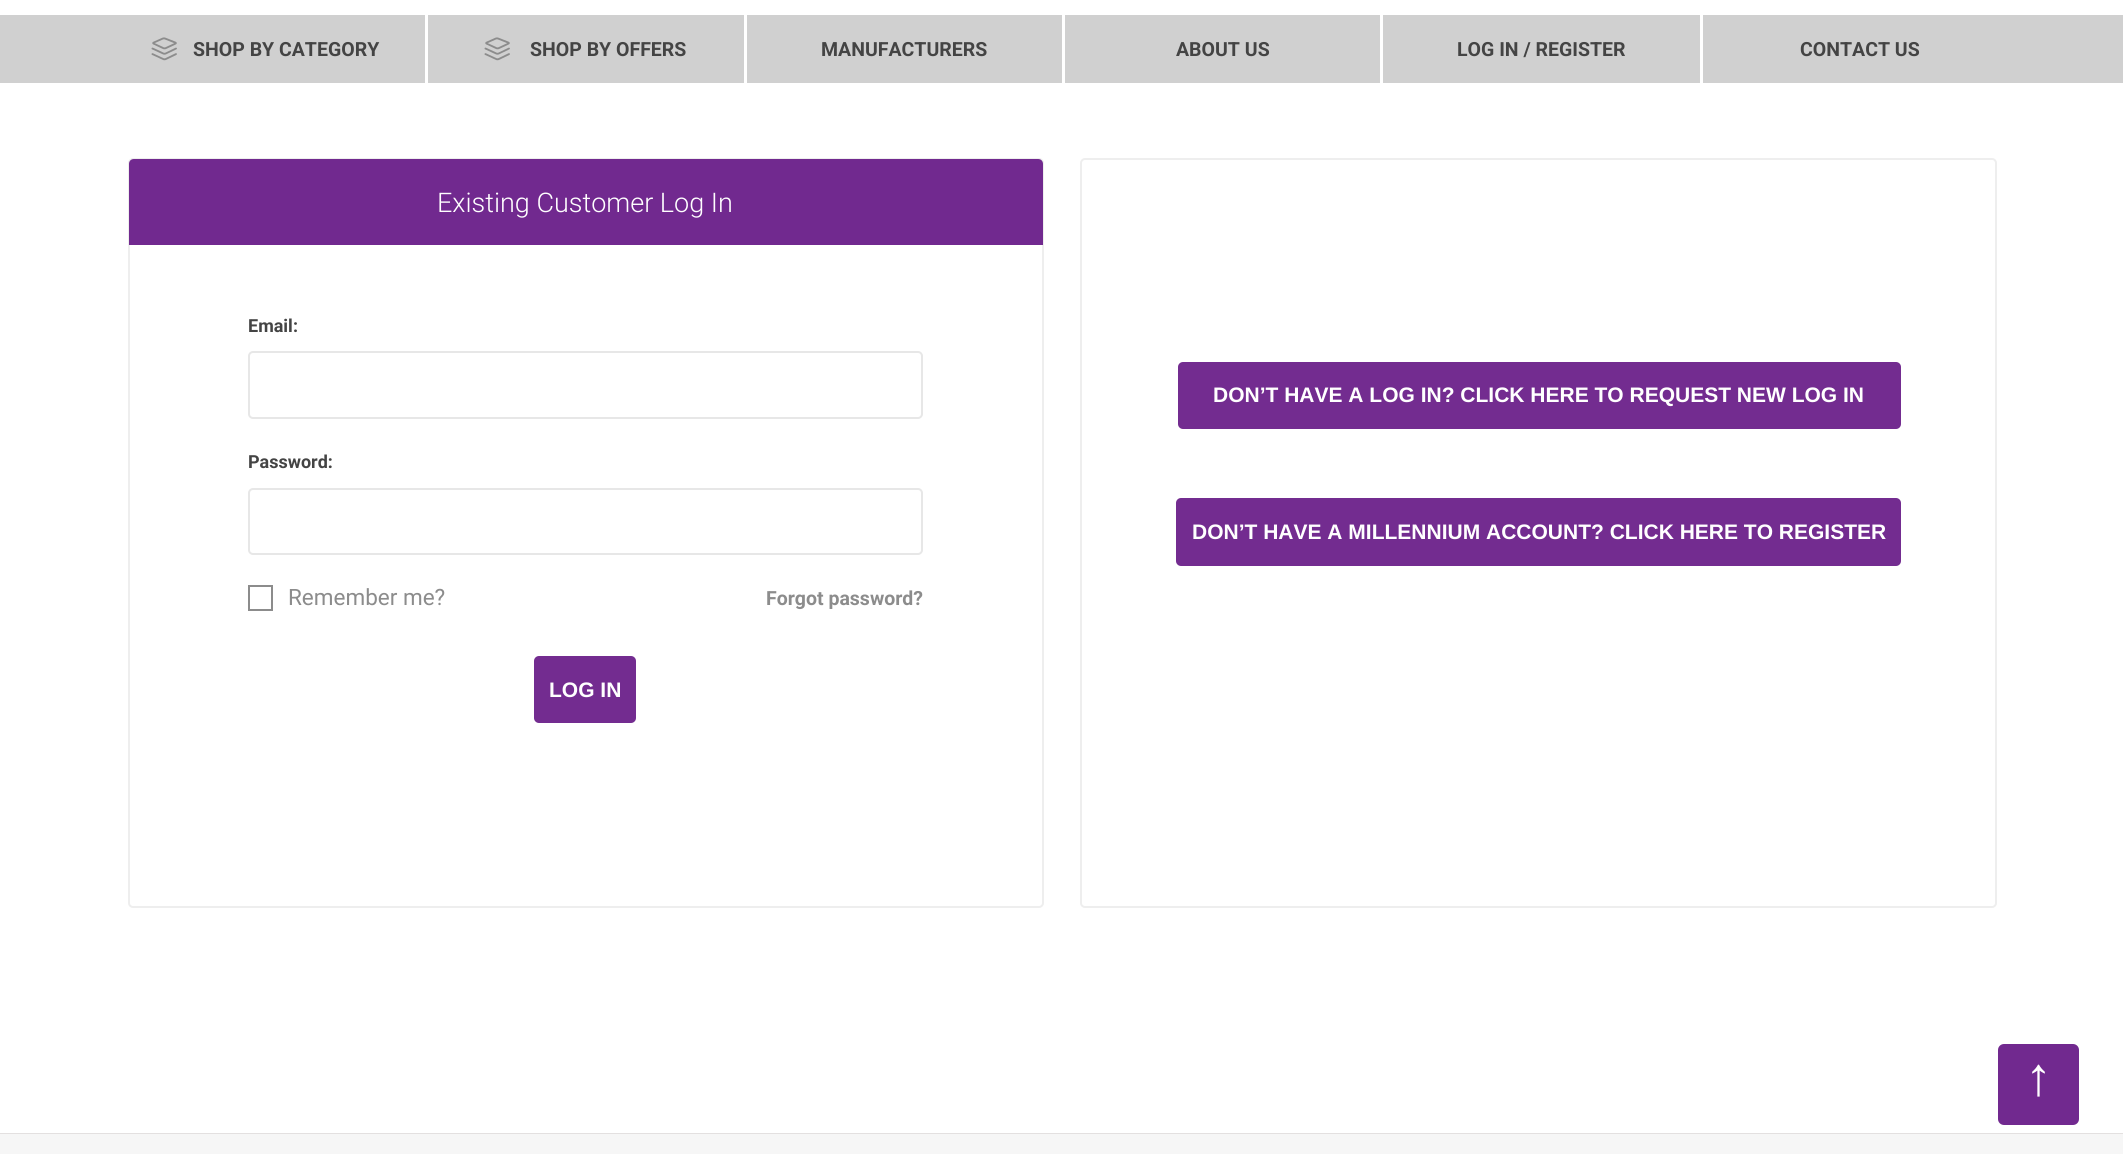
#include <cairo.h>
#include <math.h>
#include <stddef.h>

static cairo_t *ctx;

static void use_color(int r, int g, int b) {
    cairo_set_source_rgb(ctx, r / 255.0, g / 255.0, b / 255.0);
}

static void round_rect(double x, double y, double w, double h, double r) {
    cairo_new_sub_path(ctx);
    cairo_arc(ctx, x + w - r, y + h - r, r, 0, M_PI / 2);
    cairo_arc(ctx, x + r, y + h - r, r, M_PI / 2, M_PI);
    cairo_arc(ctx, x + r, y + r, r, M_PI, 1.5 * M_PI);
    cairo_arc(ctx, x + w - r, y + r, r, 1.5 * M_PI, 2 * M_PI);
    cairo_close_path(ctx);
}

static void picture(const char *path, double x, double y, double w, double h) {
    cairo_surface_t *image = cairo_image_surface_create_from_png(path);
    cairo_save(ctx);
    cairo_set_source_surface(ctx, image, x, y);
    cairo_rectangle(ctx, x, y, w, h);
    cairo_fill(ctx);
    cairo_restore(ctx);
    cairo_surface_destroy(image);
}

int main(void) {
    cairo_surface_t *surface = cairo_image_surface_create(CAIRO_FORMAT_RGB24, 2123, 1154);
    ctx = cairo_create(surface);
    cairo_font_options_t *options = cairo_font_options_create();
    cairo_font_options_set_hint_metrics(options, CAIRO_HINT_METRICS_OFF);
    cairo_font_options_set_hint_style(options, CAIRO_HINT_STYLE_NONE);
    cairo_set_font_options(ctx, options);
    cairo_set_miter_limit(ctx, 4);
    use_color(255, 255, 255);
    cairo_paint(ctx);
    use_color(208, 208, 208);
    cairo_rectangle(ctx, 0, 15, 2123, 68);
    cairo_fill(ctx);
    picture("img1.png", 151, 37, 26, 24);
    cairo_select_font_face(ctx, "Roboto", CAIRO_FONT_SLANT_NORMAL, CAIRO_FONT_WEIGHT_BOLD);
    cairo_set_font_size(ctx, 19.5);
    use_color(68, 68, 68);
    cairo_move_to(ctx, 193, 56);
    cairo_show_text(ctx, "SHOP BY CATEGORY");
    use_color(255, 255, 255);
    cairo_rectangle(ctx, 425, 15, 3, 68);
    cairo_fill(ctx);
    picture("img1.png", 484, 37, 26, 24);
    use_color(68, 68, 68);
    cairo_move_to(ctx, 530, 56);
    cairo_show_text(ctx, "SHOP BY OFFERS");
    use_color(255, 255, 255);
    cairo_rectangle(ctx, 744, 15, 3, 68);
    cairo_fill(ctx);
    use_color(68, 68, 68);
    cairo_move_to(ctx, 821, 56);
    cairo_show_text(ctx, "MANUFACTURERS");
    use_color(255, 255, 255);
    cairo_rectangle(ctx, 1062, 15, 3, 68);
    cairo_fill(ctx);
    use_color(68, 68, 68);
    cairo_move_to(ctx, 1176, 56);
    cairo_show_text(ctx, "ABOUT US");
    use_color(255, 255, 255);
    cairo_rectangle(ctx, 1380, 15, 3, 68);
    cairo_fill(ctx);
    use_color(68, 68, 68);
    cairo_move_to(ctx, 1457, 56);
    cairo_show_text(ctx, "LOG IN / REGISTER");
    use_color(255, 255, 255);
    cairo_rectangle(ctx, 1700, 15, 3, 68);
    cairo_fill(ctx);
    use_color(68, 68, 68);
    cairo_move_to(ctx, 1800, 56);
    cairo_show_text(ctx, "CONTACT US");
    round_rect(129, 159, 914, 748, 4);
    use_color(238, 238, 238);
    cairo_stroke(ctx);
    use_color(113, 41, 143);
    cairo_new_path(ctx);
    cairo_move_to(ctx, 134, 159);
    cairo_line_to(ctx, 1038, 159);
    cairo_curve_to(ctx, 1041, 159, 1043, 161, 1043, 164);
    cairo_line_to(ctx, 1043, 245);
    cairo_line_to(ctx, 129, 245);
    cairo_line_to(ctx, 129, 164);
    cairo_curve_to(ctx, 129, 161, 131, 159, 134, 159);
    cairo_close_path(ctx);
    cairo_fill(ctx);
    cairo_select_font_face(ctx, "Roboto Light", CAIRO_FONT_SLANT_NORMAL, CAIRO_FONT_WEIGHT_NORMAL);
    cairo_set_font_size(ctx, 27);
    use_color(255, 255, 255);
    cairo_move_to(ctx, 437, 212);
    cairo_show_text(ctx, "Existing Customer Log In");
    cairo_select_font_face(ctx, "Roboto", CAIRO_FONT_SLANT_NORMAL, CAIRO_FONT_WEIGHT_BOLD);
    cairo_set_font_size(ctx, 18);
    use_color(68, 68, 68);
    cairo_move_to(ctx, 248, 332);
    cairo_show_text(ctx, "Email:");
    round_rect(249, 352, 673, 66, 4);
    use_color(231, 231, 231);
    cairo_stroke(ctx);
    use_color(68, 68, 68);
    cairo_move_to(ctx, 248, 468);
    cairo_show_text(ctx, "Password:");
    round_rect(249, 489, 673, 65, 4);
    use_color(231, 231, 231);
    cairo_stroke(ctx);
    cairo_rectangle(ctx, 249, 586, 23, 24);
    use_color(140, 140, 140);
    cairo_stroke(ctx);
    cairo_select_font_face(ctx, "Roboto", CAIRO_FONT_SLANT_NORMAL, CAIRO_FONT_WEIGHT_NORMAL);
    cairo_set_font_size(ctx, 22.5);
    cairo_move_to(ctx, 288, 605);
    cairo_show_text(ctx, "Remember me?");
    cairo_select_font_face(ctx, "Roboto", CAIRO_FONT_SLANT_NORMAL, CAIRO_FONT_WEIGHT_BOLD);
    cairo_set_font_size(ctx, 19.5);
    cairo_move_to(ctx, 766, 605);
    cairo_show_text(ctx, "Forgot password?");
    use_color(115, 44, 144);
    round_rect(534, 656, 102, 67, 5);
    cairo_fill(ctx);
    cairo_select_font_face(ctx, "Liberation Sans", CAIRO_FONT_SLANT_NORMAL, CAIRO_FONT_WEIGHT_BOLD);
    cairo_set_font_size(ctx, 21);
    use_color(255, 255, 255);
    cairo_move_to(ctx, 549, 697);
    cairo_show_text(ctx, "LOG IN");
    round_rect(1081, 159, 915, 748, 4);
    use_color(238, 238, 238);
    cairo_stroke(ctx);
    use_color(115, 44, 144);
    round_rect(1178, 362, 723, 67, 5);
    cairo_fill(ctx);
    use_color(255, 255, 255);
    cairo_move_to(ctx, 1213, 402);
    cairo_show_text(ctx, "DON’T HAVE A LOG IN? CLICK HERE TO REQUEST NEW LOG IN");
    use_color(115, 44, 144);
    round_rect(1176, 498, 725, 68, 5);
    cairo_fill(ctx);
    use_color(255, 255, 255);
    cairo_move_to(ctx, 1192, 539);
    cairo_show_text(ctx, "DON’T HAVE A MILLENNIUM ACCOUNT? CLICK HERE TO REGISTER");
    use_color(113, 41, 143);
    round_rect(1998, 1044, 81, 81, 6);
    cairo_fill(ctx);
    cairo_select_font_face(ctx, "Liberation Sans", CAIRO_FONT_SLANT_NORMAL, CAIRO_FONT_WEIGHT_NORMAL);
    cairo_set_font_size(ctx, 54);
    use_color(255, 255, 255);
    cairo_move_to(ctx, 2025, 1095);
    cairo_show_text(ctx, "↑");
    use_color(227, 224, 224);
    cairo_rectangle(ctx, 0, 1133, 2123, 1);
    cairo_fill(ctx);
    use_color(246, 246, 246);
    cairo_rectangle(ctx, 0, 1134, 2123, 20);
    cairo_fill(ctx);
    cairo_surface_write_to_png(surface, "result.png");
    cairo_font_options_destroy(options);
    cairo_destroy(ctx);
    cairo_surface_destroy(surface);
    return 0;
}
